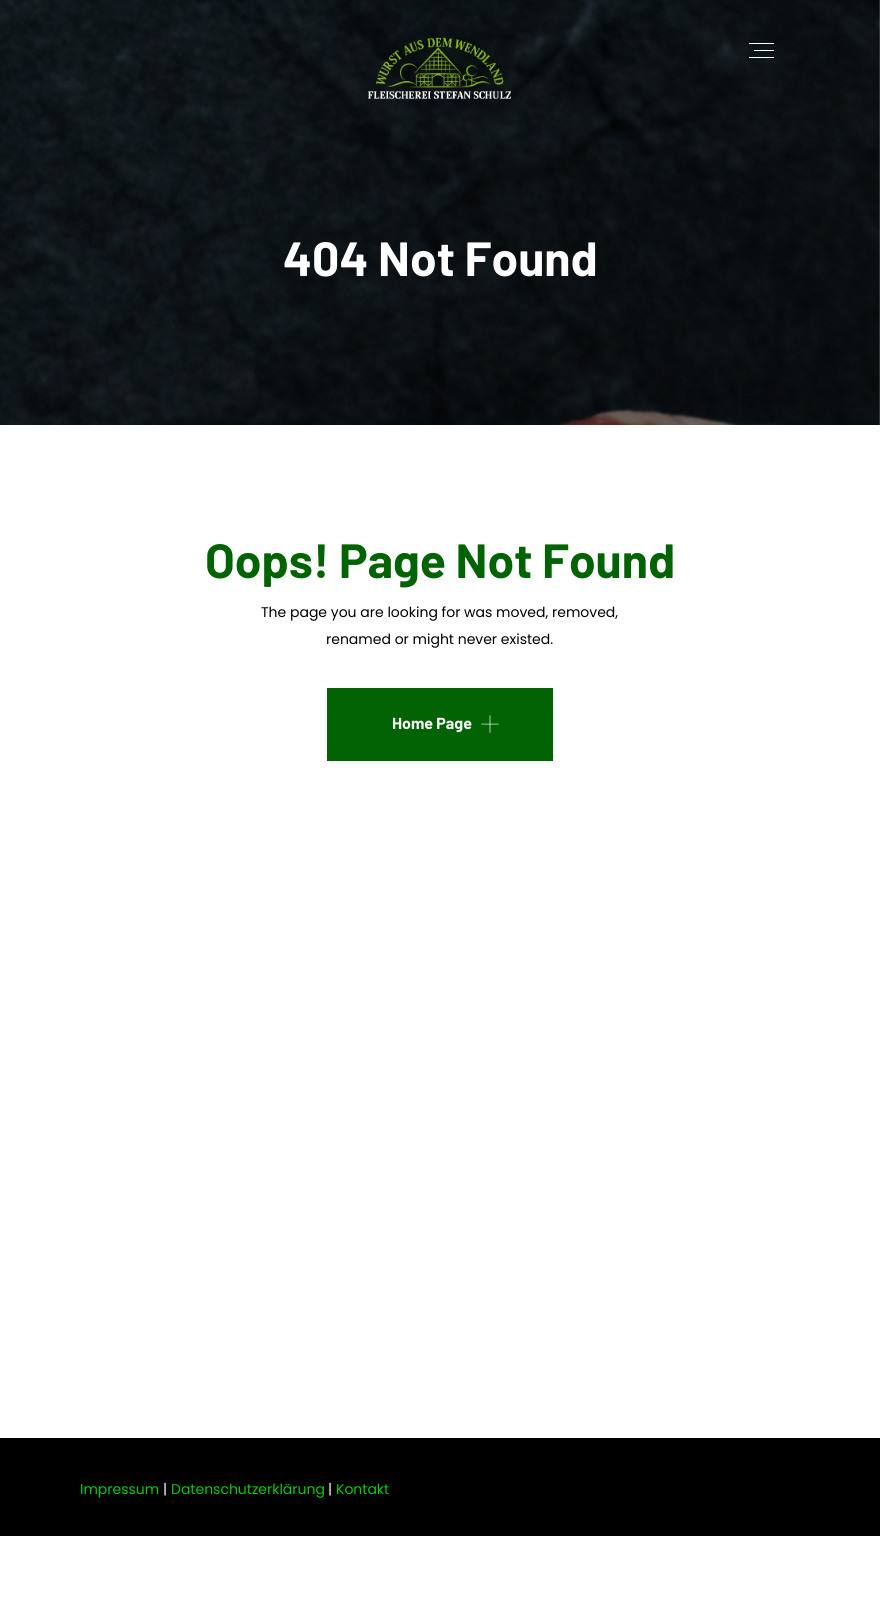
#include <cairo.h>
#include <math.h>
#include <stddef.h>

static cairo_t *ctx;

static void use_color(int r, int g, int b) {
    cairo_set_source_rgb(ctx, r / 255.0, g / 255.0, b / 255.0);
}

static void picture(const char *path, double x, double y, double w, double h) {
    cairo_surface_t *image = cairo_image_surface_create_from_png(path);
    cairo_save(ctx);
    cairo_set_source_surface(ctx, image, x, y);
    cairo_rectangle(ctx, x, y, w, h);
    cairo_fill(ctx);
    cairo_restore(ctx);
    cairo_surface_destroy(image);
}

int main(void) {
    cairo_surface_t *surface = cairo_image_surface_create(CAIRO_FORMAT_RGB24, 880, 1598);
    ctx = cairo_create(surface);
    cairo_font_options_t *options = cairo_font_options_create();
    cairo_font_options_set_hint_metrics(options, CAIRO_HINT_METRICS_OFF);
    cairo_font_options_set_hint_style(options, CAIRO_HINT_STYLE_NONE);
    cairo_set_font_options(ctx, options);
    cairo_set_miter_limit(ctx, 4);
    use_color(255, 255, 255);
    cairo_paint(ctx);
    picture("img2.png", 0, 0, 880, 425);
    picture("img1.png", 368, 37, 143, 62);
    use_color(255, 255, 255);
    cairo_rectangle(ctx, 749, 43, 25, 1);
    cairo_fill(ctx);
    cairo_rectangle(ctx, 754, 50, 20, 1);
    cairo_fill(ctx);
    cairo_rectangle(ctx, 749, 57, 25, 1);
    cairo_fill(ctx);
    cairo_select_font_face(ctx, "Barlow", CAIRO_FONT_SLANT_NORMAL, CAIRO_FONT_WEIGHT_BOLD);
    cairo_set_font_size(ctx, 48);
    cairo_move_to(ctx, 283, 276);
    cairo_show_text(ctx, "404 Not Found");
    use_color(1, 99, 3);
    cairo_move_to(ctx, 205, 578);
    cairo_show_text(ctx, "Oops! Page Not Found");
    cairo_select_font_face(ctx, "Poppins", CAIRO_FONT_SLANT_NORMAL, CAIRO_FONT_WEIGHT_NORMAL);
    cairo_set_font_size(ctx, 14);
    use_color(0, 0, 0);
    cairo_move_to(ctx, 261, 617);
    cairo_show_text(ctx, "The page you are looking for was moved, removed,");
    cairo_move_to(ctx, 326, 644);
    cairo_show_text(ctx, "renamed or might never existed.");
    use_color(1, 99, 3);
    cairo_rectangle(ctx, 327, 688, 226, 73);
    cairo_fill(ctx);
    cairo_select_font_face(ctx, "Barlow", CAIRO_FONT_SLANT_NORMAL, CAIRO_FONT_WEIGHT_BOLD);
    cairo_set_font_size(ctx, 16);
    use_color(255, 255, 255);
    cairo_move_to(ctx, 392, 729);
    cairo_show_text(ctx, "Home Page");
    cairo_select_font_face(ctx, "Poppins ExtraLight", CAIRO_FONT_SLANT_NORMAL, CAIRO_FONT_WEIGHT_NORMAL);
    cairo_set_font_size(ctx, 34);
    cairo_move_to(ctx, 480, 737);
    cairo_show_text(ctx, "+");
    use_color(0, 0, 0);
    cairo_rectangle(ctx, 0, 1438, 880, 98);
    cairo_fill(ctx);
    cairo_select_font_face(ctx, "Poppins", CAIRO_FONT_SLANT_NORMAL, CAIRO_FONT_WEIGHT_NORMAL);
    cairo_set_font_size(ctx, 14);
    use_color(6, 204, 11);
    cairo_move_to(ctx, 80, 1494);
    cairo_show_text(ctx, "Impressum");
    use_color(255, 255, 255);
    cairo_move_to(ctx, 163, 1494);
    cairo_show_text(ctx, "|");
    use_color(6, 204, 11);
    cairo_move_to(ctx, 171, 1494);
    cairo_show_text(ctx, "Datenschutzerklärung");
    use_color(255, 255, 255);
    cairo_move_to(ctx, 328, 1494);
    cairo_show_text(ctx, "|");
    use_color(6, 204, 11);
    cairo_move_to(ctx, 336, 1494);
    cairo_show_text(ctx, "Kontakt");
    cairo_surface_write_to_png(surface, "result.png");
    cairo_font_options_destroy(options);
    cairo_destroy(ctx);
    cairo_surface_destroy(surface);
    return 0;
}
